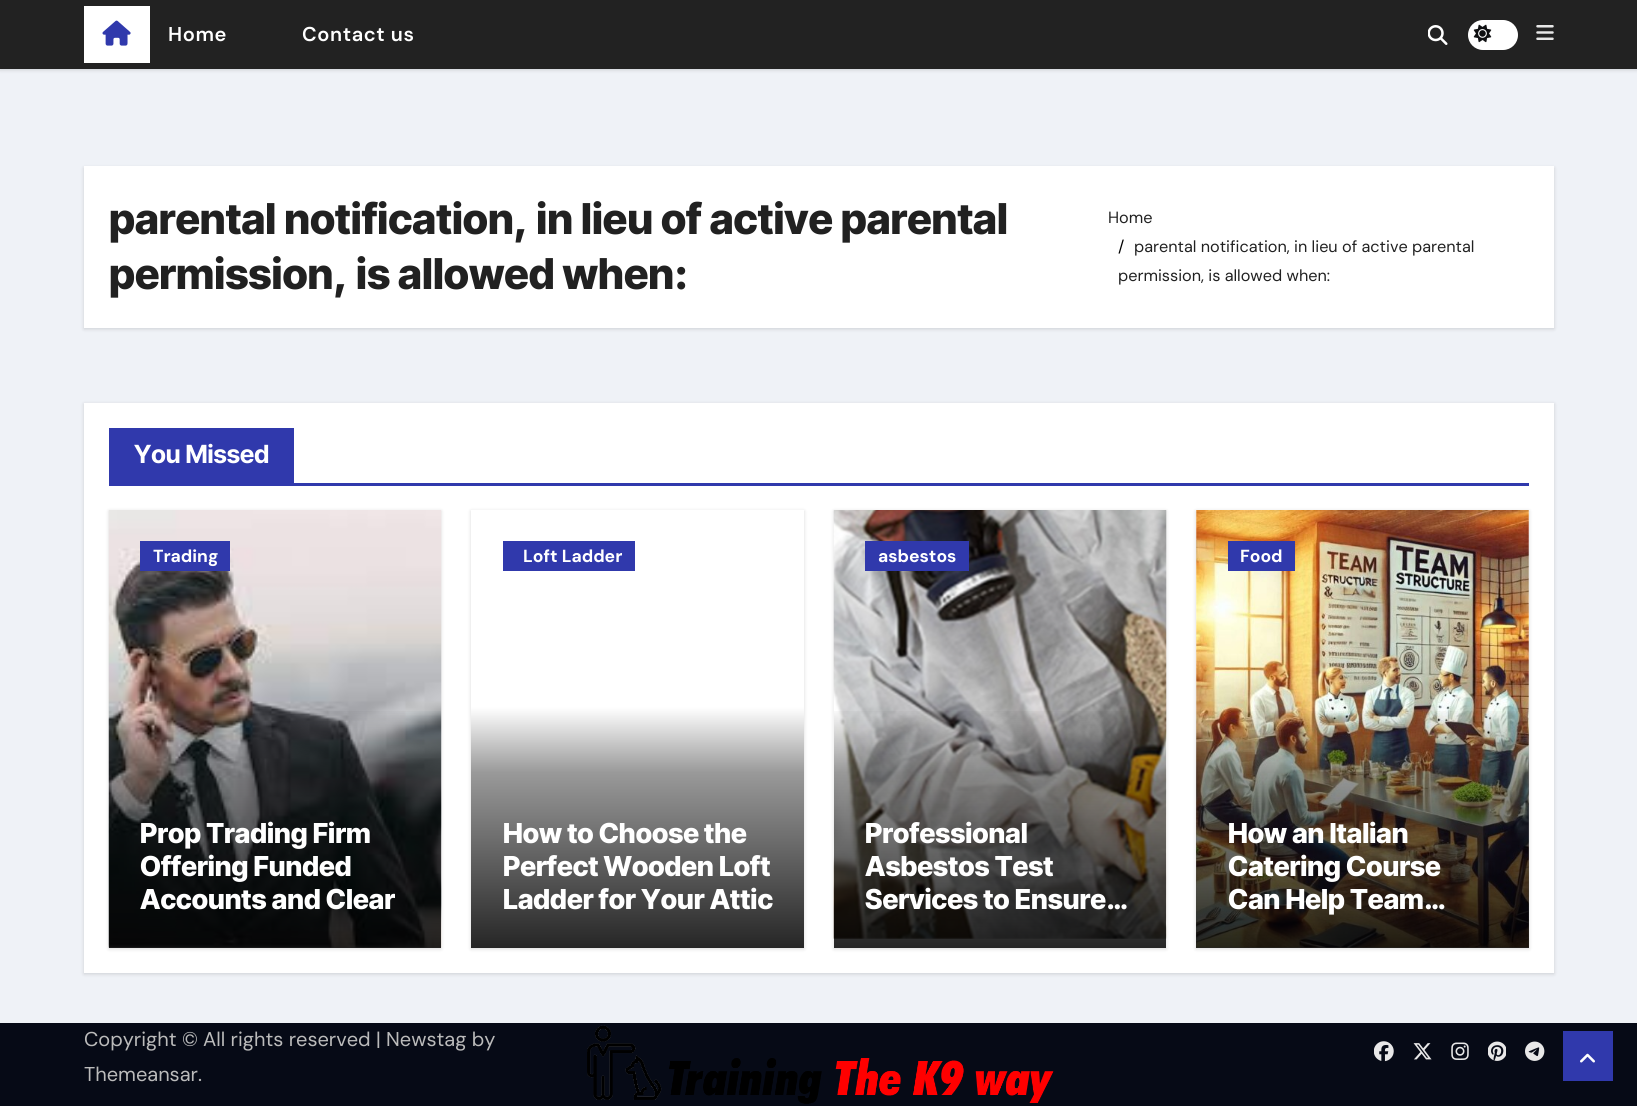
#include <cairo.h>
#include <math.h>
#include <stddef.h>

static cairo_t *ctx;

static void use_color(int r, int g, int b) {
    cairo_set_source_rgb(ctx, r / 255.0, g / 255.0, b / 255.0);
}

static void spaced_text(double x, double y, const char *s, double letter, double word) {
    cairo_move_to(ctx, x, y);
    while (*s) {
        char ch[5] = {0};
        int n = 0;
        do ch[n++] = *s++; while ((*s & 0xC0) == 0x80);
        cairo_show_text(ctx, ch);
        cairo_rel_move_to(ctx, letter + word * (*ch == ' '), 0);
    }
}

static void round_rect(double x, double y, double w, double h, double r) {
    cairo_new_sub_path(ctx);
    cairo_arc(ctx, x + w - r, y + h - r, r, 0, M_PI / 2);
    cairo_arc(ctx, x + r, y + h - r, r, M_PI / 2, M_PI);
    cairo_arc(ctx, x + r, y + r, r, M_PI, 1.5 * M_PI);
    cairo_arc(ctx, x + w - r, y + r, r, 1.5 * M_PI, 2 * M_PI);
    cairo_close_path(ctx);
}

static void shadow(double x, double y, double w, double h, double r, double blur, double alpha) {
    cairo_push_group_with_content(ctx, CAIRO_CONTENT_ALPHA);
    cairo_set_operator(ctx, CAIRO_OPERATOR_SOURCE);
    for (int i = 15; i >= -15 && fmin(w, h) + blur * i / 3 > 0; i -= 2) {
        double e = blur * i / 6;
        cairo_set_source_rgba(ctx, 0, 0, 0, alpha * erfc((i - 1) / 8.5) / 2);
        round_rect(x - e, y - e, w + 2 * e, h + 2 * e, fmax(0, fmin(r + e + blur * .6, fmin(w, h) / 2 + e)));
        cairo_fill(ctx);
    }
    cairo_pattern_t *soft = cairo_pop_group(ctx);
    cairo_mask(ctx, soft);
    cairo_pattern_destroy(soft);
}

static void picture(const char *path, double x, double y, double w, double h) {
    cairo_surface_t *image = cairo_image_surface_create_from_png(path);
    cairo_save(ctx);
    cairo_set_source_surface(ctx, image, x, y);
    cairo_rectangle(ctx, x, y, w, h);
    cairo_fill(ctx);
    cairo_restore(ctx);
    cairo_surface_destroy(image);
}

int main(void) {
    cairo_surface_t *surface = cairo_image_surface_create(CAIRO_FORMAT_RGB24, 1637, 1106);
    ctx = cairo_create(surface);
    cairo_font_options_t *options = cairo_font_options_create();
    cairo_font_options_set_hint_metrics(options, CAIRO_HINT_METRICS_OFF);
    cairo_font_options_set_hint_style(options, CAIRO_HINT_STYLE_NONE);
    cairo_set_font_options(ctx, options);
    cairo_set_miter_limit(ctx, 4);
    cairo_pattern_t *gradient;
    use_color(239, 242, 247);
    cairo_paint(ctx);
    use_color(0, 0, 0);
    shadow(0, 1, 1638, 69, 0, 2, 0.15);
    use_color(34, 34, 34);
    cairo_rectangle(ctx, 0, 0, 1637, 69);
    cairo_fill(ctx);
    use_color(255, 255, 255);
    cairo_rectangle(ctx, 84, 6, 66, 57);
    cairo_fill(ctx);
    picture("img1.png", 102, 20, 29, 26);
    cairo_select_font_face(ctx, "DM Sans SemiBold", CAIRO_FONT_SLANT_NORMAL, CAIRO_FONT_WEIGHT_NORMAL);
    cairo_set_font_size(ctx, 20);
    spaced_text(168, 41, "Home", 0.6, 0);
    spaced_text(302, 41, "Contact us", 0.6, 0);
    picture("img2.png", 1428, 25, 20, 20);
    round_rect(1468, 20, 50, 30, 15);
    cairo_fill(ctx);
    picture("img3.png", 1473, 24, 19, 19);
    picture("img4.png", 1536, 25, 18, 15);
    use_color(0, 0, 0);
    shadow(84, 168, 1470, 161, 0, 2, 0.15);
    use_color(255, 255, 255);
    cairo_rectangle(ctx, 84, 166, 1470, 162);
    cairo_fill(ctx);
    cairo_select_font_face(ctx, "Inter Tight ExtraBold", CAIRO_FONT_SLANT_NORMAL, CAIRO_FONT_WEIGHT_NORMAL);
    cairo_set_font_size(ctx, 42.5);
    use_color(33, 33, 33);
    cairo_move_to(ctx, 109, 234);
    cairo_show_text(ctx, "parental notification, in lieu of active parental");
    cairo_move_to(ctx, 109, 289);
    cairo_show_text(ctx, "permission, is allowed when:");
    cairo_select_font_face(ctx, "DM Sans", CAIRO_FONT_SLANT_NORMAL, CAIRO_FONT_WEIGHT_NORMAL);
    cairo_set_font_size(ctx, 16.25);
    cairo_move_to(ctx, 1108, 223);
    cairo_show_text(ctx, "Home");
    use_color(0, 0, 0);
    cairo_move_to(ctx, 1118, 252);
    cairo_show_text(ctx, "/");
    use_color(33, 33, 33);
    cairo_move_to(ctx, 1134, 252);
    cairo_show_text(ctx, "parental notification, in lieu of active parental");
    cairo_move_to(ctx, 1118, 281);
    cairo_show_text(ctx, "permission, is allowed when:");
    use_color(0, 0, 0);
    shadow(84, 404, 1470, 570, 0, 2, 0.15);
    use_color(255, 255, 255);
    cairo_rectangle(ctx, 84, 403, 1470, 570);
    cairo_fill(ctx);
    use_color(48, 57, 172);
    cairo_rectangle(ctx, 109, 483, 1420, 3);
    cairo_fill(ctx);
    cairo_rectangle(ctx, 109, 428, 185, 55);
    cairo_fill(ctx);
    cairo_select_font_face(ctx, "Inter Tight", CAIRO_FONT_SLANT_NORMAL, CAIRO_FONT_WEIGHT_BOLD);
    cairo_set_font_size(ctx, 25);
    use_color(255, 255, 255);
    cairo_move_to(ctx, 134, 463);
    cairo_show_text(ctx, "You Missed");
    use_color(0, 0, 0);
    shadow(109, 511, 332, 438, 0, 2, 0.15);
    use_color(255, 255, 255);
    cairo_rectangle(ctx, 109, 947, 332, 1);
    cairo_fill(ctx);
    picture("img5.png", 108, 510, 334, 438);
    use_color(48, 57, 172);
    cairo_rectangle(ctx, 140, 541, 90, 30);
    cairo_fill(ctx);
    cairo_select_font_face(ctx, "DM Sans", CAIRO_FONT_SLANT_NORMAL, CAIRO_FONT_WEIGHT_BOLD);
    cairo_set_font_size(ctx, 17.5);
    use_color(255, 255, 255);
    cairo_move_to(ctx, 153, 562);
    cairo_show_text(ctx, "Trading");
    gradient = cairo_pattern_create_linear(275, 510, 275, 948);
    cairo_pattern_add_color_stop_rgba(gradient, 0, 0, 0, 0, 0);
    cairo_pattern_add_color_stop_rgba(gradient, 0.45, 0, 0, 0, 0);
    cairo_pattern_add_color_stop_rgba(gradient, 0.6, 0, 0, 0, 0.4);
    cairo_pattern_add_color_stop_rgba(gradient, 1, 0, 0, 0, 0.85);
    cairo_set_source(ctx, gradient);
    cairo_pattern_destroy(gradient);
    cairo_rectangle(ctx, 109, 711, 332, 237);
    cairo_fill(ctx);
    cairo_select_font_face(ctx, "Inter Tight ExtraBold", CAIRO_FONT_SLANT_NORMAL, CAIRO_FONT_WEIGHT_NORMAL);
    cairo_set_font_size(ctx, 27.5);
    use_color(255, 255, 255);
    cairo_move_to(ctx, 140, 843);
    cairo_show_text(ctx, "Prop Trading Firm");
    cairo_move_to(ctx, 140, 876);
    cairo_show_text(ctx, "Offering Funded");
    cairo_move_to(ctx, 140, 909);
    cairo_show_text(ctx, "Accounts and Clear");
    use_color(0, 0, 0);
    shadow(471, 511, 333, 438, 0, 2, 0.15);
    gradient = cairo_pattern_create_linear(638, 510, 638, 948);
    cairo_pattern_add_color_stop_rgba(gradient, 0, 1, 1, 1, 1);
    cairo_pattern_add_color_stop_rgba(gradient, 0.45, 1, 1, 1, 1);
    cairo_pattern_add_color_stop_rgba(gradient, 0.6, 0.6, 0.6, 0.6, 1);
    cairo_pattern_add_color_stop_rgba(gradient, 1, 0.149, 0.149, 0.149, 1);
    cairo_set_source(ctx, gradient);
    cairo_pattern_destroy(gradient);
    cairo_rectangle(ctx, 471, 510, 333, 438);
    cairo_fill(ctx);
    use_color(48, 57, 172);
    cairo_rectangle(ctx, 503, 541, 132, 30);
    cairo_fill(ctx);
    cairo_select_font_face(ctx, "DM Sans", CAIRO_FONT_SLANT_NORMAL, CAIRO_FONT_WEIGHT_BOLD);
    cairo_set_font_size(ctx, 17.5);
    use_color(255, 255, 255);
    cairo_move_to(ctx, 523, 562);
    cairo_show_text(ctx, "Loft Ladder");
    cairo_select_font_face(ctx, "Inter Tight ExtraBold", CAIRO_FONT_SLANT_NORMAL, CAIRO_FONT_WEIGHT_NORMAL);
    cairo_set_font_size(ctx, 27.5);
    cairo_move_to(ctx, 503, 843);
    cairo_show_text(ctx, "How to Choose the");
    cairo_move_to(ctx, 503, 876);
    cairo_show_text(ctx, "Perfect Wooden Loft");
    cairo_move_to(ctx, 503, 909);
    cairo_show_text(ctx, "Ladder for Your Attic");
    use_color(0, 0, 0);
    shadow(834, 511, 332, 438, 0, 2, 0.15);
    use_color(255, 255, 255);
    cairo_rectangle(ctx, 834, 939, 332, 9);
    cairo_fill(ctx);
    picture("img6.png", 833, 510, 334, 429);
    use_color(48, 57, 172);
    cairo_rectangle(ctx, 865, 541, 104, 30);
    cairo_fill(ctx);
    cairo_select_font_face(ctx, "DM Sans", CAIRO_FONT_SLANT_NORMAL, CAIRO_FONT_WEIGHT_BOLD);
    cairo_set_font_size(ctx, 17.5);
    use_color(255, 255, 255);
    cairo_move_to(ctx, 878, 562);
    cairo_show_text(ctx, "asbestos");
    gradient = cairo_pattern_create_linear(1000, 510, 1000, 948);
    cairo_pattern_add_color_stop_rgba(gradient, 0, 0, 0, 0, 0);
    cairo_pattern_add_color_stop_rgba(gradient, 0.45, 0, 0, 0, 0);
    cairo_pattern_add_color_stop_rgba(gradient, 0.6, 0, 0, 0, 0.4);
    cairo_pattern_add_color_stop_rgba(gradient, 1, 0, 0, 0, 0.85);
    cairo_set_source(ctx, gradient);
    cairo_pattern_destroy(gradient);
    cairo_rectangle(ctx, 834, 711, 332, 237);
    cairo_fill(ctx);
    cairo_select_font_face(ctx, "Inter Tight ExtraBold", CAIRO_FONT_SLANT_NORMAL, CAIRO_FONT_WEIGHT_NORMAL);
    cairo_set_font_size(ctx, 27.5);
    use_color(255, 255, 255);
    cairo_move_to(ctx, 865, 843);
    cairo_show_text(ctx, "Professional");
    cairo_move_to(ctx, 865, 876);
    cairo_show_text(ctx, "Asbestos Test");
    cairo_move_to(ctx, 865, 909);
    cairo_show_text(ctx, "Services to Ensure…");
    use_color(0, 0, 0);
    shadow(1196, 511, 333, 438, 0, 2, 0.15);
    use_color(255, 255, 255);
    cairo_rectangle(ctx, 1196, 510, 333, 438);
    cairo_fill(ctx);
    picture("img7.png", 1196, 510, 333, 438);
    use_color(48, 57, 172);
    cairo_rectangle(ctx, 1228, 541, 67, 30);
    cairo_fill(ctx);
    cairo_select_font_face(ctx, "DM Sans", CAIRO_FONT_SLANT_NORMAL, CAIRO_FONT_WEIGHT_BOLD);
    cairo_set_font_size(ctx, 17.5);
    use_color(255, 255, 255);
    cairo_move_to(ctx, 1240, 562);
    cairo_show_text(ctx, "Food");
    gradient = cairo_pattern_create_linear(1363, 510, 1363, 948);
    cairo_pattern_add_color_stop_rgba(gradient, 0, 0, 0, 0, 0);
    cairo_pattern_add_color_stop_rgba(gradient, 0.45, 0, 0, 0, 0);
    cairo_pattern_add_color_stop_rgba(gradient, 0.6, 0, 0, 0, 0.4);
    cairo_pattern_add_color_stop_rgba(gradient, 1, 0, 0, 0, 0.85);
    cairo_set_source(ctx, gradient);
    cairo_pattern_destroy(gradient);
    cairo_rectangle(ctx, 1196, 711, 333, 237);
    cairo_fill(ctx);
    cairo_select_font_face(ctx, "Inter Tight ExtraBold", CAIRO_FONT_SLANT_NORMAL, CAIRO_FONT_WEIGHT_NORMAL);
    cairo_set_font_size(ctx, 27.5);
    use_color(255, 255, 255);
    cairo_move_to(ctx, 1228, 843);
    cairo_show_text(ctx, "How an Italian");
    cairo_move_to(ctx, 1228, 876);
    cairo_show_text(ctx, "Catering Course");
    cairo_move_to(ctx, 1228, 909);
    cairo_show_text(ctx, "Can Help Team…");
    use_color(6, 10, 22);
    cairo_rectangle(ctx, 0, 1023, 1637, 83);
    cairo_fill(ctx);
    cairo_select_font_face(ctx, "DM Sans", CAIRO_FONT_SLANT_NORMAL, CAIRO_FONT_WEIGHT_NORMAL);
    cairo_set_font_size(ctx, 20);
    use_color(187, 187, 187);
    cairo_move_to(ctx, 84, 1046);
    cairo_show_text(ctx, "Copyright © All rights reserved | Newstag by");
    cairo_move_to(ctx, 84, 1081);
    cairo_show_text(ctx, "Themeansar.");
    picture("img8.png", 587, 1025, 467, 79);
    picture("img9.png", 1374, 1041, 20, 21);
    picture("img10.png", 1413, 1043, 19, 17);
    picture("img11.png", 1451, 1042, 18, 18);
    picture("img12.png", 1488, 1041, 18, 20);
    picture("img13.png", 1525, 1041, 20, 20);
    use_color(48, 57, 172);
    cairo_rectangle(ctx, 1563, 1031, 50, 50);
    cairo_fill(ctx);
    picture("img14.png", 1580, 1053, 15, 10);
    cairo_surface_write_to_png(surface, "result.png");
    cairo_font_options_destroy(options);
    cairo_destroy(ctx);
    cairo_surface_destroy(surface);
    return 0;
}
